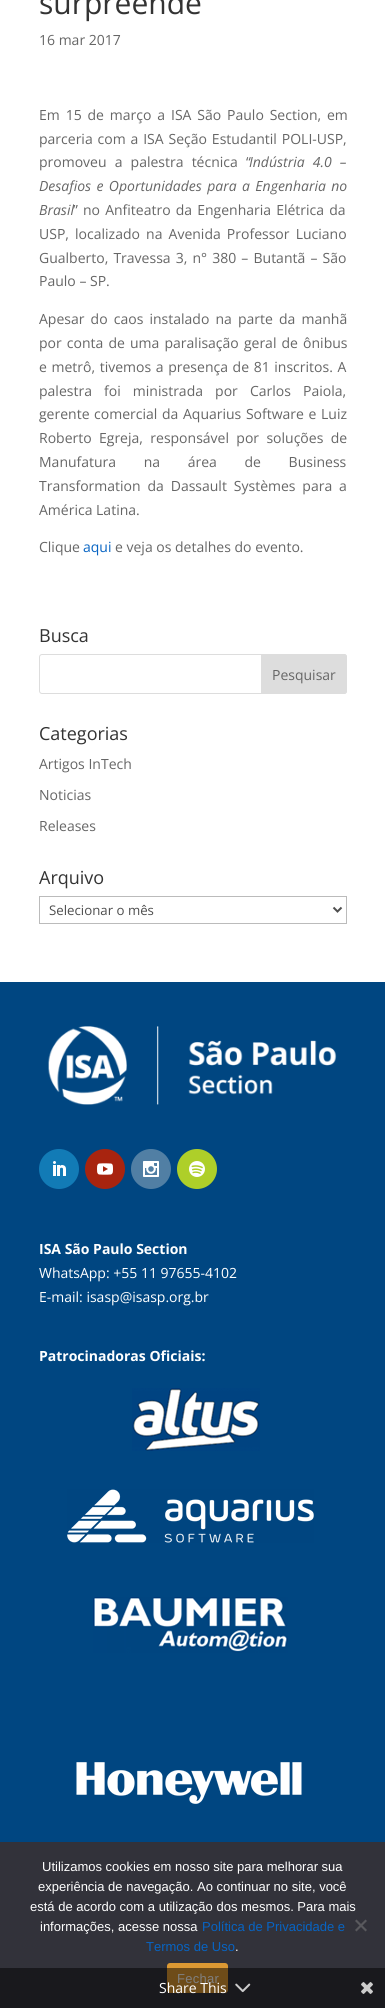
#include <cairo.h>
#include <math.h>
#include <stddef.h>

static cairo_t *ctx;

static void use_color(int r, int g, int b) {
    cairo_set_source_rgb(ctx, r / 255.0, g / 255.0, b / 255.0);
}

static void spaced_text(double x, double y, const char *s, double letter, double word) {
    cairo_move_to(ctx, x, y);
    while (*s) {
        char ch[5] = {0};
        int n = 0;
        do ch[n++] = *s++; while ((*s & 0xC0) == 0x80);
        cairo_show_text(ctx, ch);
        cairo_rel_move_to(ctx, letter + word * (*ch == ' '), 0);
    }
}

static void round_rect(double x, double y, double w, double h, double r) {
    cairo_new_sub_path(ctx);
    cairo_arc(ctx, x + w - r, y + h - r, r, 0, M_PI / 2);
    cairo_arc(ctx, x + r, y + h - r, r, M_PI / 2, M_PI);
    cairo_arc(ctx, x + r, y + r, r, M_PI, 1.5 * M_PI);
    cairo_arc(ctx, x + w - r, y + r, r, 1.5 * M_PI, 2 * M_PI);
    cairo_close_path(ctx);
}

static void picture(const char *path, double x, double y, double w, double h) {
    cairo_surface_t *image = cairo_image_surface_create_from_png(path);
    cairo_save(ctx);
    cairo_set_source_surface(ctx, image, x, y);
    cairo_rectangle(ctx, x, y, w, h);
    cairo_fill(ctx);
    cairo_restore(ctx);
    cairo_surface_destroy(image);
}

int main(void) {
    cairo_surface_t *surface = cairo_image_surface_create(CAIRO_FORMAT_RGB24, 385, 2008);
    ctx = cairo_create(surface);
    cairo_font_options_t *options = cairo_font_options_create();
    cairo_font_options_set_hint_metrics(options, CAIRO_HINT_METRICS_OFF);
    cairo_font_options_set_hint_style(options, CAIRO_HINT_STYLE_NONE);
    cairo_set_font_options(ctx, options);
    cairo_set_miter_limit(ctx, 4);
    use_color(255, 255, 255);
    cairo_paint(ctx);
    cairo_select_font_face(ctx, "Open Sans", CAIRO_FONT_SLANT_NORMAL, CAIRO_FONT_WEIGHT_NORMAL);
    cairo_set_font_size(ctx, 30);
    use_color(51, 51, 51);
    cairo_move_to(ctx, 39, 14);
    cairo_show_text(ctx, "surpreende");
    cairo_set_font_size(ctx, 14);
    use_color(102, 102, 102);
    cairo_move_to(ctx, 39, 45);
    cairo_show_text(ctx, "16 mar 2017");
    spaced_text(39, 120, "Em 15 de março a ISA São Paulo Section, em", 0, 2.25);
    spaced_text(39, 144, "parceria com a ISA Seção Estudantil POLI-USP,", 0, 1.25);
    spaced_text(39, 167, "promoveu a palestra técnica “", 0, 4.5);
    cairo_select_font_face(ctx, "Open Sans", CAIRO_FONT_SLANT_ITALIC, CAIRO_FONT_WEIGHT_NORMAL);
    spaced_text(249, 167, "Indústria 4.0 –", 0, 4.5);
    spaced_text(39, 191, "Desafios e Oportunidades para a Engenharia no", 0, 1.75);
    cairo_move_to(ctx, 39, 215);
    cairo_show_text(ctx, "Brasil");
    cairo_select_font_face(ctx, "Open Sans", CAIRO_FONT_SLANT_NORMAL, CAIRO_FONT_WEIGHT_NORMAL);
    spaced_text(73, 215, "” no Anfiteatro da Engenharia Elétrica da", 0, 1.5);
    spaced_text(39, 239, "USP, localizado na Avenida Professor Luciano", 0, 2.5);
    spaced_text(39, 263, "Gualberto, Travessa 3, n° 380 – Butantã – São", 0, 1.5);
    cairo_move_to(ctx, 39, 286);
    cairo_show_text(ctx, "Paulo – SP.");
    spaced_text(39, 324, "Apesar do caos instalado na parte da manhã", 0, 2.5);
    spaced_text(39, 348, "por conta de uma paralisação geral de ônibus", 0, 1.5);
    spaced_text(39, 372, "e metrô, tivemos a presença de 81 inscritos. A", 0, 1);
    spaced_text(39, 396, "palestra foi ministrada por Carlos Paiola,", 0, 8.5);
    spaced_text(39, 419, "gerente comercial da Aquarius Software e Luiz", 0, 1);
    spaced_text(39, 443, "Roberto Egreja, responsável por soluções de", 0, 3.75);
    spaced_text(39, 467, "Manufatura na área de Business", 0, 24);
    spaced_text(39, 491, "Transformation da Dassault Systèmes para a", 0, 3.25);
    cairo_move_to(ctx, 39, 515);
    cairo_show_text(ctx, "América Latina.");
    cairo_move_to(ctx, 39, 552);
    cairo_show_text(ctx, "Clique");
    use_color(7, 100, 195);
    cairo_move_to(ctx, 83, 552);
    cairo_show_text(ctx, "aqui");
    use_color(102, 102, 102);
    cairo_move_to(ctx, 115, 552);
    cairo_show_text(ctx, "e veja os detalhes do evento.");
    cairo_set_font_size(ctx, 18);
    use_color(51, 51, 51);
    cairo_move_to(ctx, 39, 642);
    cairo_show_text(ctx, "Busca");
    round_rect(39.5, 654.5, 307, 39, 2.5);
    use_color(221, 221, 221);
    cairo_set_line_width(ctx, 1);
    cairo_stroke(ctx);
    cairo_new_path(ctx);
    cairo_move_to(ctx, 261.5, 654.5);
    cairo_line_to(ctx, 344, 654.5);
    cairo_curve_to(ctx, 345.5, 654.5, 346.5, 655.5, 346.5, 657);
    cairo_line_to(ctx, 346.5, 691);
    cairo_curve_to(ctx, 346.5, 692.5, 345.5, 693.5, 344, 693.5);
    cairo_line_to(ctx, 261.5, 693.5);
    cairo_close_path(ctx);
    cairo_fill_preserve(ctx);
    cairo_stroke(ctx);
    cairo_set_font_size(ctx, 14);
    use_color(102, 102, 102);
    cairo_move_to(ctx, 272, 680);
    cairo_show_text(ctx, "Pesquisar");
    cairo_set_font_size(ctx, 18);
    use_color(51, 51, 51);
    cairo_move_to(ctx, 39, 740);
    cairo_show_text(ctx, "Categorias");
    cairo_set_font_size(ctx, 14);
    use_color(102, 102, 102);
    cairo_move_to(ctx, 39, 769);
    cairo_show_text(ctx, "Artigos InTech");
    cairo_move_to(ctx, 39, 800);
    cairo_show_text(ctx, "Noticias");
    cairo_move_to(ctx, 39, 831);
    cairo_show_text(ctx, "Releases");
    cairo_set_font_size(ctx, 18);
    use_color(51, 51, 51);
    cairo_move_to(ctx, 39, 884);
    cairo_show_text(ctx, "Arquivo");
    cairo_rectangle(ctx, 39.5, 896.5, 307, 27);
    use_color(187, 187, 187);
    cairo_stroke(ctx);
    cairo_new_path(ctx);
    cairo_move_to(ctx, 333.5, 907.5);
    cairo_line_to(ctx, 337.5, 911.5);
    cairo_line_to(ctx, 341.5, 907.5);
    use_color(78, 78, 78);
    cairo_set_line_width(ctx, 2);
    cairo_stroke(ctx);
    cairo_set_font_size(ctx, 13.25);
    cairo_move_to(ctx, 49, 915);
    cairo_show_text(ctx, "Selecionar o mês");
    use_color(0, 70, 129);
    cairo_rectangle(ctx, 0, 982, 385, 860);
    cairo_fill(ctx);
    picture("img1.png", 48, 1026, 289, 79);
    use_color(18, 123, 182);
    cairo_arc(ctx, 59, 1169, 20, 0, 2 * M_PI);
    cairo_fill(ctx);
    picture("img2.png", 53, 1161, 13, 15);
    use_color(168, 36, 15);
    cairo_arc(ctx, 105, 1169, 20, 0, 2 * M_PI);
    cairo_fill(ctx);
    picture("img3.png", 97, 1163, 16, 12);
    use_color(81, 127, 164);
    cairo_arc(ctx, 151, 1169, 20, 0, 2 * M_PI);
    cairo_fill(ctx);
    picture("img4.png", 143, 1161, 16, 16);
    use_color(174, 207, 41);
    cairo_arc(ctx, 197, 1169, 20, 0, 2 * M_PI);
    cairo_fill(ctx);
    picture("img5.png", 189, 1161, 16, 16);
    cairo_select_font_face(ctx, "Open Sans", CAIRO_FONT_SLANT_NORMAL, CAIRO_FONT_WEIGHT_BOLD);
    cairo_set_font_size(ctx, 14);
    use_color(255, 255, 255);
    cairo_move_to(ctx, 39, 1254);
    cairo_show_text(ctx, "ISA São Paulo Section");
    cairo_select_font_face(ctx, "Open Sans", CAIRO_FONT_SLANT_NORMAL, CAIRO_FONT_WEIGHT_NORMAL);
    cairo_move_to(ctx, 39, 1278);
    cairo_show_text(ctx, "WhatsApp: +55 11 97655-4102");
    cairo_move_to(ctx, 39, 1302);
    cairo_show_text(ctx, "E-mail: isasp@isasp.org.br");
    cairo_select_font_face(ctx, "Open Sans", CAIRO_FONT_SLANT_NORMAL, CAIRO_FONT_WEIGHT_BOLD);
    cairo_move_to(ctx, 39, 1361);
    cairo_show_text(ctx, "Patrocinadoras Oficiais:");
    picture("img6.png", 132, 1388, 128, 63);
    picture("img7.png", 67, 1489, 247, 54);
    picture("img8.png", 93, 1597, 195, 56);
    picture("img9.png", 76, 1762, 226, 42);
    use_color(50, 50, 58);
    cairo_rectangle(ctx, 0, 1842, 385, 166);
    cairo_fill(ctx);
    cairo_select_font_face(ctx, "Liberation Sans", CAIRO_FONT_SLANT_NORMAL, CAIRO_FONT_WEIGHT_NORMAL);
    cairo_set_font_size(ctx, 13);
    use_color(255, 255, 255);
    cairo_move_to(ctx, 42, 1871);
    cairo_show_text(ctx, "Utilizamos cookies em nosso site para melhorar sua");
    cairo_move_to(ctx, 38, 1891);
    cairo_show_text(ctx, "experiência de navegação. Ao continuar no site, você");
    cairo_move_to(ctx, 30, 1911);
    cairo_show_text(ctx, "está de acordo com a utilização dos mesmos. Para mais");
    cairo_move_to(ctx, 40, 1931);
    cairo_show_text(ctx, "informações, acesse nossa");
    use_color(7, 100, 195);
    cairo_move_to(ctx, 202, 1931);
    cairo_show_text(ctx, "Política de Privacidade e");
    cairo_move_to(ctx, 146, 1951);
    cairo_show_text(ctx, "Termos de Uso");
    use_color(255, 255, 255);
    cairo_move_to(ctx, 235, 1951);
    cairo_show_text(ctx, ".");
    use_color(89, 89, 93);
    cairo_new_path(ctx);
    cairo_move_to(ctx, 365.5, 1919.5);
    cairo_line_to(ctx, 367, 1921);
    cairo_line_to(ctx, 356.5, 1931.5);
    cairo_line_to(ctx, 355, 1930);
    cairo_close_path(ctx);
    cairo_fill(ctx);
    cairo_new_path(ctx);
    cairo_move_to(ctx, 355, 1921);
    cairo_line_to(ctx, 356.5, 1919.5);
    cairo_line_to(ctx, 367, 1930);
    cairo_line_to(ctx, 365.5, 1931.5);
    cairo_close_path(ctx);
    cairo_fill(ctx);
    use_color(221, 153, 51);
    round_rect(167, 1963, 61, 30, 3);
    cairo_fill(ctx);
    use_color(255, 255, 255);
    spaced_text(177, 1983, "Fechar", 0.25, 0);
    cairo_set_source_rgba(ctx, 0, 0, 0, 0.5);
    cairo_rectangle(ctx, 0, 1968, 385, 40);
    cairo_fill(ctx);
    cairo_select_font_face(ctx, "Open Sans", CAIRO_FONT_SLANT_NORMAL, CAIRO_FONT_WEIGHT_NORMAL);
    cairo_set_font_size(ctx, 14);
    use_color(255, 255, 255);
    cairo_move_to(ctx, 159, 1993);
    cairo_show_text(ctx, "Share This");
    picture("img10.png", 235, 1983, 16, 10);
    picture("img11.png", 361, 1982, 12, 12);
    cairo_surface_write_to_png(surface, "result.png");
    cairo_font_options_destroy(options);
    cairo_destroy(ctx);
    cairo_surface_destroy(surface);
    return 0;
}
